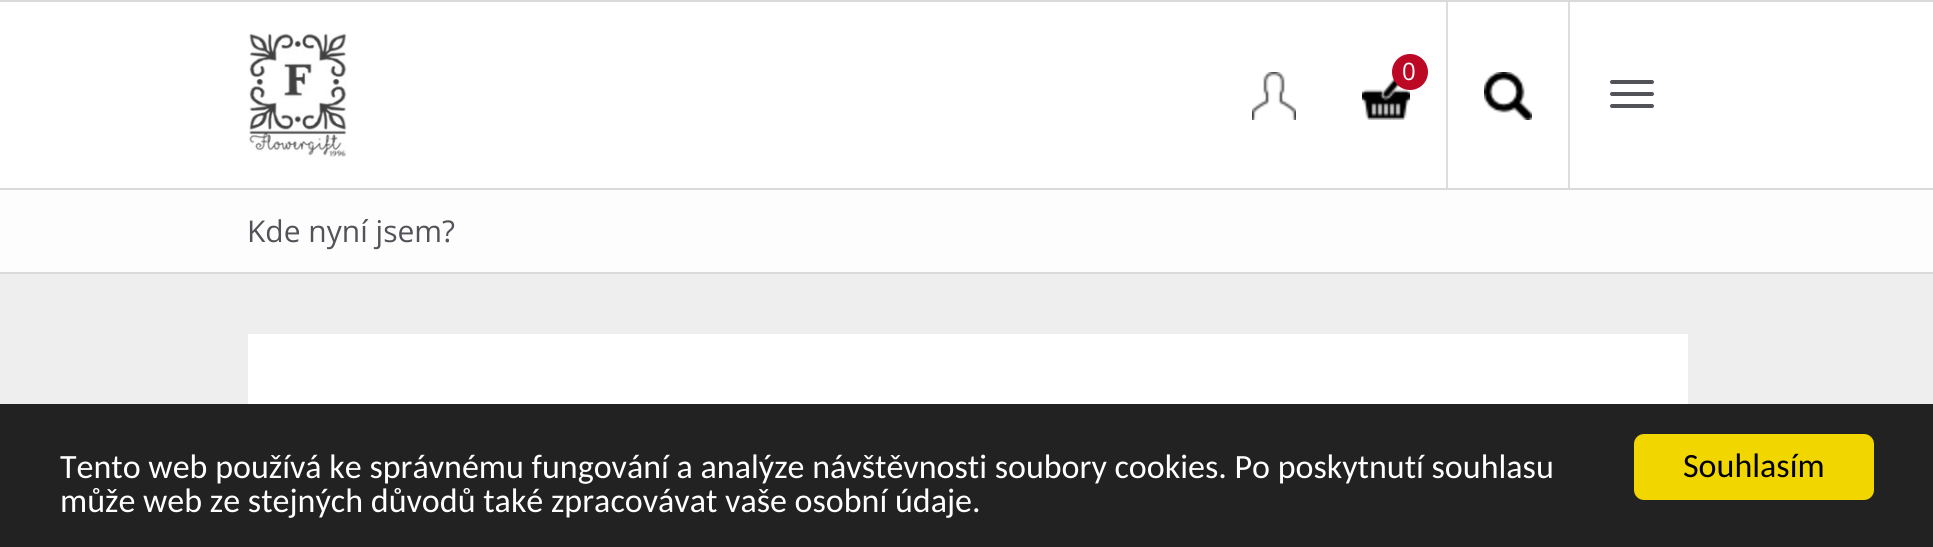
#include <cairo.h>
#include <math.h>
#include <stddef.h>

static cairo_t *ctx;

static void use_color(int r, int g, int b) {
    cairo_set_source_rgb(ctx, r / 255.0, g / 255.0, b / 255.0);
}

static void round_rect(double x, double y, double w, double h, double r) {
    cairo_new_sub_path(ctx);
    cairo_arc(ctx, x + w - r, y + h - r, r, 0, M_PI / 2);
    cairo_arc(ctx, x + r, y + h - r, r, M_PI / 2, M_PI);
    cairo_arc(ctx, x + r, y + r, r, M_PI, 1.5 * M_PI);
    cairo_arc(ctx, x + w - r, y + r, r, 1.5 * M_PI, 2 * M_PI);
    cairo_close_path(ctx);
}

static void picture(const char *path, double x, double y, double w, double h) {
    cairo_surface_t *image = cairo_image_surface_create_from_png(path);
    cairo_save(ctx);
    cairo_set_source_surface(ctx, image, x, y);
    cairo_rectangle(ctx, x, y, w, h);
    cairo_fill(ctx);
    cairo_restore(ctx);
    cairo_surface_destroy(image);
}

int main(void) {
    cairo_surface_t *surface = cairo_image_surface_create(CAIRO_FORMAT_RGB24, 1933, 547);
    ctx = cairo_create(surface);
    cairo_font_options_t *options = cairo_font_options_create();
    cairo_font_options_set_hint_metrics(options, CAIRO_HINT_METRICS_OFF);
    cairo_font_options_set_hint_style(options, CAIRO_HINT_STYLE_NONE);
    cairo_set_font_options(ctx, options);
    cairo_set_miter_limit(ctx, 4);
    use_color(238, 238, 238);
    cairo_paint(ctx);
    use_color(255, 255, 255);
    cairo_rectangle(ctx, 0, 2, 1933, 186);
    cairo_fill(ctx);
    use_color(218, 218, 218);
    cairo_rectangle(ctx, 0, 0, 1933, 2);
    cairo_fill(ctx);
    cairo_rectangle(ctx, 0, 188, 1933, 2);
    cairo_fill(ctx);
    picture("img1.png", 248, 33, 99, 124);
    picture("img2.png", 1252, 72, 44, 48);
    picture("img3.png", 1362, 78, 48, 42);
    use_color(189, 8, 37);
    cairo_arc(ctx, 1410, 72, 18, 0, 2 * M_PI);
    cairo_fill(ctx);
    cairo_select_font_face(ctx, "Open Sans", CAIRO_FONT_SLANT_NORMAL, CAIRO_FONT_WEIGHT_NORMAL);
    cairo_set_font_size(ctx, 24);
    use_color(255, 255, 255);
    cairo_move_to(ctx, 1402, 80);
    cairo_show_text(ctx, "0");
    use_color(221, 221, 221);
    cairo_rectangle(ctx, 1568, 2, 2, 186);
    cairo_fill(ctx);
    cairo_rectangle(ctx, 1446, 2, 2, 186);
    cairo_fill(ctx);
    picture("img4.png", 1484, 72, 48, 48);
    use_color(82, 83, 88);
    round_rect(1610, 80, 44, 4, 2);
    cairo_fill(ctx);
    round_rect(1610, 92, 44, 4, 2);
    cairo_fill(ctx);
    round_rect(1610, 104, 44, 4, 2);
    cairo_fill(ctx);
    use_color(253, 253, 253);
    cairo_rectangle(ctx, 0, 190, 1933, 82);
    cairo_fill(ctx);
    use_color(218, 218, 218);
    cairo_rectangle(ctx, 0, 272, 1933, 2);
    cairo_fill(ctx);
    cairo_set_font_size(ctx, 30);
    use_color(82, 83, 88);
    cairo_move_to(ctx, 247, 242);
    cairo_show_text(ctx, "Kde nyní jsem?");
    use_color(255, 255, 255);
    cairo_rectangle(ctx, 248, 334, 1440, 70);
    cairo_fill(ctx);
    use_color(34, 34, 34);
    cairo_rectangle(ctx, 0, 404, 1933, 143);
    cairo_fill(ctx);
    cairo_select_font_face(ctx, "Carlito", CAIRO_FONT_SLANT_NORMAL, CAIRO_FONT_WEIGHT_NORMAL);
    cairo_set_font_size(ctx, 34);
    use_color(255, 255, 255);
    cairo_move_to(ctx, 60, 478);
    cairo_show_text(ctx, "Tento web používá ke správnému fungování a analýze návštěvnosti soubory cookies. Po poskytnutí souhlasu");
    cairo_move_to(ctx, 60, 512);
    cairo_show_text(ctx, "může web ze stejných důvodů také zpracovávat vaše osobní údaje.");
    use_color(241, 214, 0);
    round_rect(1634, 434, 240, 66, 10);
    cairo_fill(ctx);
    use_color(0, 0, 0);
    cairo_move_to(ctx, 1683, 477);
    cairo_show_text(ctx, "Souhlasím");
    cairo_surface_write_to_png(surface, "result.png");
    cairo_font_options_destroy(options);
    cairo_destroy(ctx);
    cairo_surface_destroy(surface);
    return 0;
}
